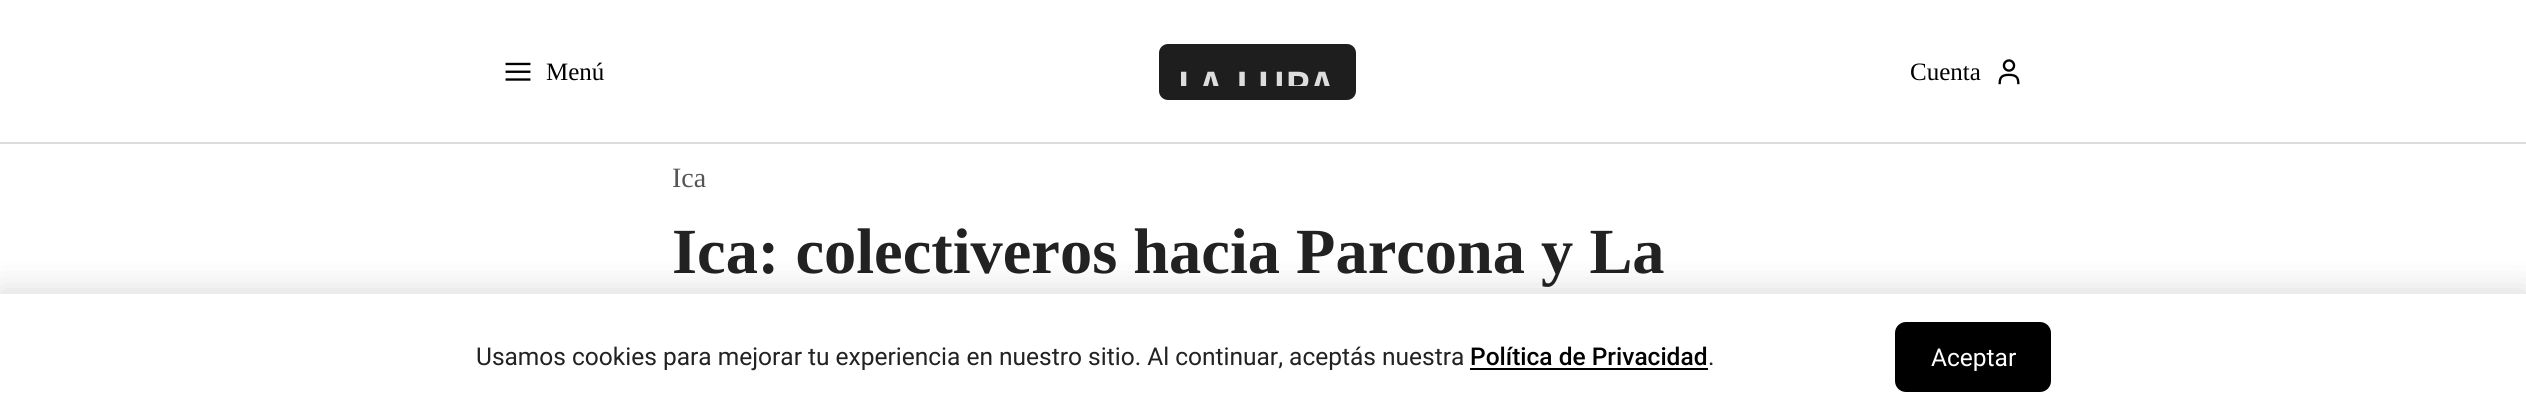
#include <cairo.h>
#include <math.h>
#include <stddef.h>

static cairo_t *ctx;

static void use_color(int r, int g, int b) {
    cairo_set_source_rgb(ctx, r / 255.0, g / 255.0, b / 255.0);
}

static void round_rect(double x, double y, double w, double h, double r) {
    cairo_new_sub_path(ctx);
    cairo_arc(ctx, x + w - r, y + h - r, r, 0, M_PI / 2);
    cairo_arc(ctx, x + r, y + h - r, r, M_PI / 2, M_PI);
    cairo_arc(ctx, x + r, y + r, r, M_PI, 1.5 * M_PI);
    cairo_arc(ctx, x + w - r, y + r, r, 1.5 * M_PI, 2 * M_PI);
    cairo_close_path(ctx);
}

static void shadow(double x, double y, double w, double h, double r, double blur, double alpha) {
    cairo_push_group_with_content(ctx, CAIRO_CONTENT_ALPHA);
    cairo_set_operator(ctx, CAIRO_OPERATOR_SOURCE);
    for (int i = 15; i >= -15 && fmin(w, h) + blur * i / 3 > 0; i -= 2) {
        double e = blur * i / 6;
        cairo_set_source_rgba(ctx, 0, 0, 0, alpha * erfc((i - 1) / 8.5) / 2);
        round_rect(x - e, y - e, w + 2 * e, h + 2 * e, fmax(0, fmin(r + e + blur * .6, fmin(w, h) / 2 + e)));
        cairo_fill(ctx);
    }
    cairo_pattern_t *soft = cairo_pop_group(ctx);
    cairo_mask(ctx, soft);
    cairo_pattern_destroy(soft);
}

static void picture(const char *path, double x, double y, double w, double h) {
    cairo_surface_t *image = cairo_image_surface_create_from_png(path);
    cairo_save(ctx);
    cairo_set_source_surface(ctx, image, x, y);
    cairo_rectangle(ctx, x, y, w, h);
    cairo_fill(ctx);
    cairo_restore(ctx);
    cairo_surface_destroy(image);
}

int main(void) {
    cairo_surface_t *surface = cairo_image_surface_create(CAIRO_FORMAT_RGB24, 2526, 419);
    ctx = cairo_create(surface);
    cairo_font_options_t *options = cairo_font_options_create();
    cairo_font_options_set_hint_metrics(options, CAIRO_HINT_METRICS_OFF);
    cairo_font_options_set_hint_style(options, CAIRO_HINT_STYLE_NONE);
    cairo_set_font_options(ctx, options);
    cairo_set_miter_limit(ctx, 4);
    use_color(255, 255, 255);
    cairo_paint(ctx);
    use_color(220, 220, 220);
    cairo_rectangle(ctx, 0, 142, 2526, 2);
    cairo_fill(ctx);
    picture("img1.png", 505, 62, 26, 19);
    cairo_select_font_face(ctx, "Liberation Serif", CAIRO_FONT_SLANT_NORMAL, CAIRO_FONT_WEIGHT_NORMAL);
    cairo_set_font_size(ctx, 25);
    use_color(0, 0, 0);
    cairo_move_to(ctx, 546, 80);
    cairo_show_text(ctx, "Menú");
    use_color(30, 30, 30);
    round_rect(1159, 44, 197, 56, 9);
    cairo_fill(ctx);
    picture("img2.png", 1181, 71, 149, 15);
    use_color(0, 0, 0);
    cairo_move_to(ctx, 1910, 80);
    cairo_show_text(ctx, "Cuenta");
    picture("img3.png", 1998, 59, 22, 26);
    cairo_set_font_size(ctx, 28);
    use_color(85, 85, 85);
    cairo_move_to(ctx, 672, 187);
    cairo_show_text(ctx, "Ica");
    cairo_select_font_face(ctx, "Liberation Serif", CAIRO_FONT_SLANT_NORMAL, CAIRO_FONT_WEIGHT_BOLD);
    cairo_set_font_size(ctx, 64.4);
    use_color(34, 34, 34);
    cairo_move_to(ctx, 672, 273);
    cairo_show_text(ctx, "Ica: colectiveros hacia Parcona y La");
    use_color(0, 0, 0);
    shadow(0, 291, 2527, 126, 0, 17.5, 0.15);
    use_color(255, 255, 255);
    cairo_rectangle(ctx, 0, 294, 2526, 125);
    cairo_fill(ctx);
    cairo_select_font_face(ctx, "Roboto", CAIRO_FONT_SLANT_NORMAL, CAIRO_FONT_WEIGHT_NORMAL);
    cairo_set_font_size(ctx, 24.5);
    use_color(34, 34, 34);
    cairo_move_to(ctx, 476, 365);
    cairo_show_text(ctx, "Usamos cookies para mejorar tu experiencia en nuestro sitio. Al continuar, aceptás nuestra");
    cairo_select_font_face(ctx, "Roboto Medium", CAIRO_FONT_SLANT_NORMAL, CAIRO_FONT_WEIGHT_NORMAL);
    use_color(0, 0, 0);
    cairo_move_to(ctx, 1470, 365);
    cairo_show_text(ctx, "Política de Privacidad");
    cairo_rectangle(ctx, 1470, 368, 238, 2);
    cairo_fill(ctx);
    cairo_select_font_face(ctx, "Roboto", CAIRO_FONT_SLANT_NORMAL, CAIRO_FONT_WEIGHT_NORMAL);
    use_color(34, 34, 34);
    cairo_move_to(ctx, 1708, 365);
    cairo_show_text(ctx, ".");
    use_color(0, 0, 0);
    round_rect(1895, 322, 156, 70, 11);
    cairo_fill(ctx);
    use_color(255, 255, 255);
    cairo_move_to(ctx, 1931, 366);
    cairo_show_text(ctx, "Aceptar");
    cairo_surface_write_to_png(surface, "result.png");
    cairo_font_options_destroy(options);
    cairo_destroy(ctx);
    cairo_surface_destroy(surface);
    return 0;
}
